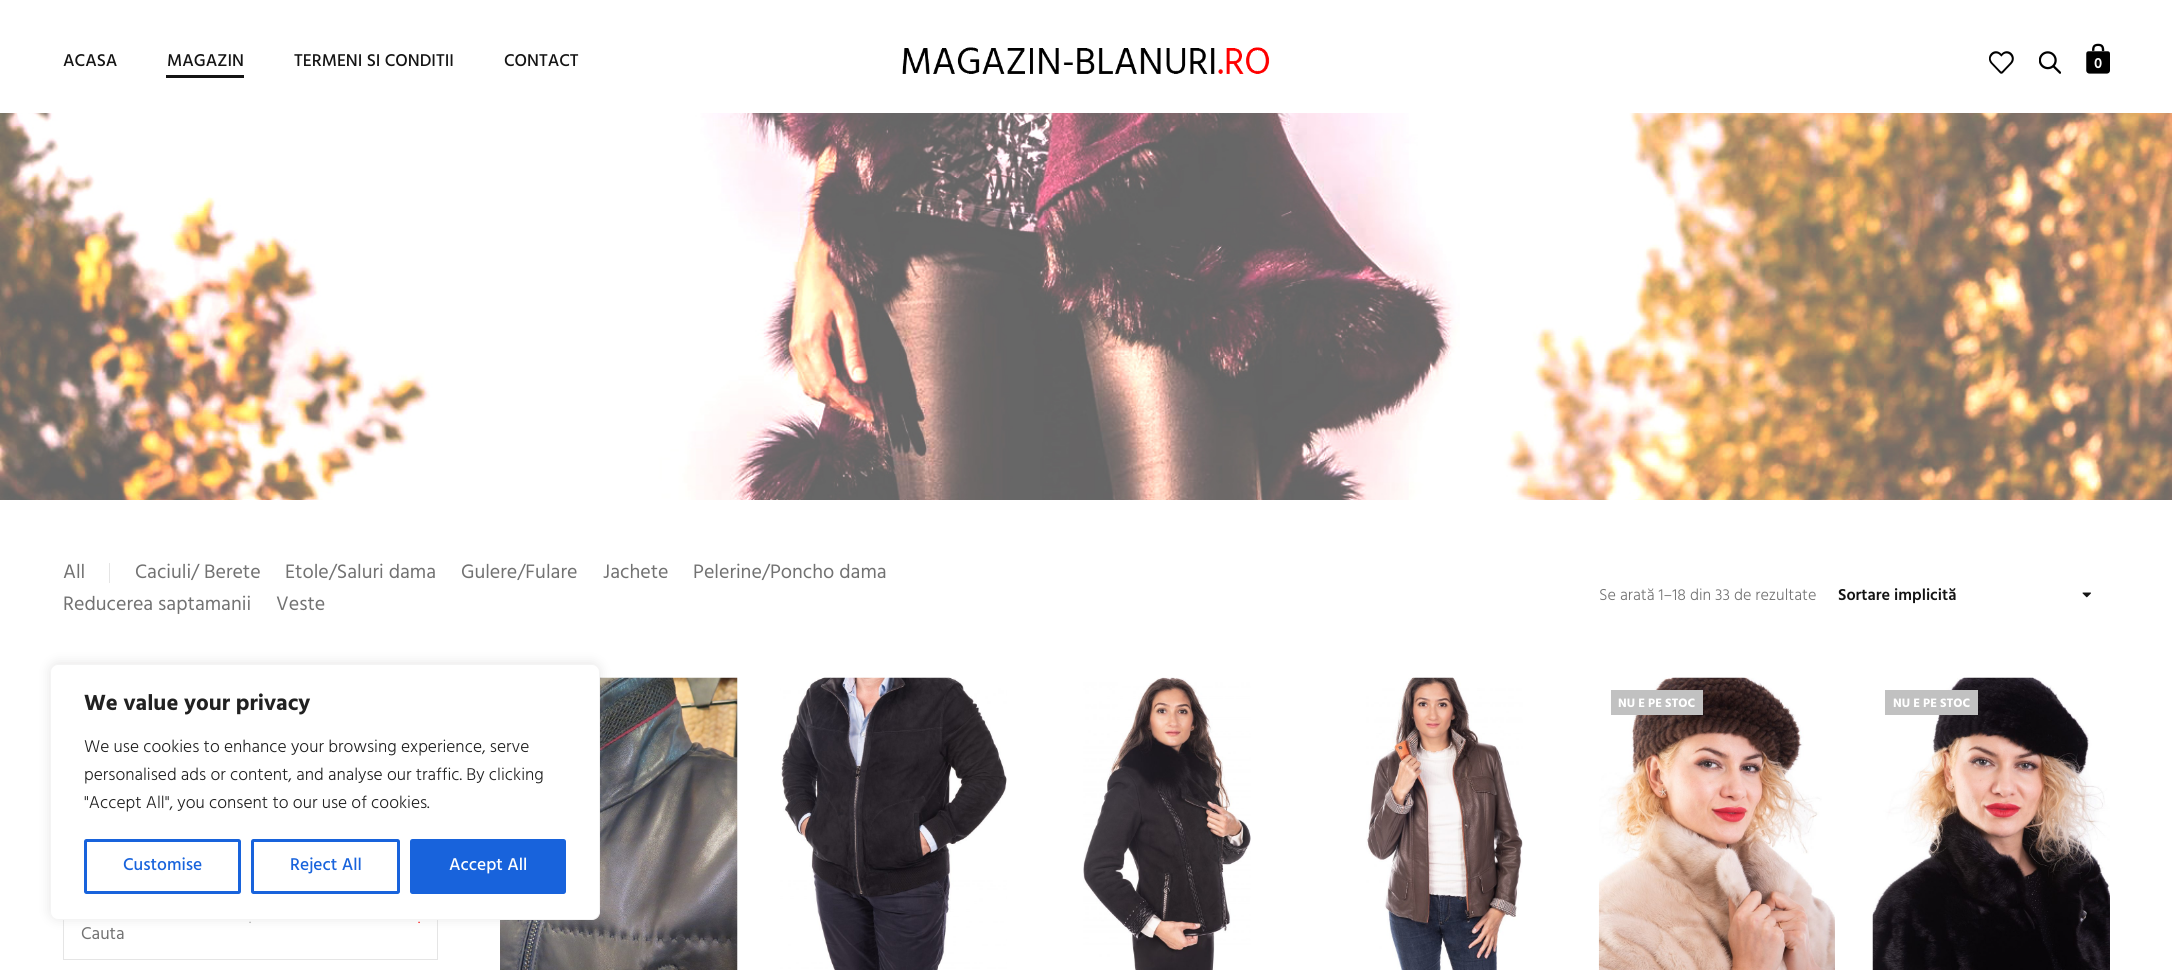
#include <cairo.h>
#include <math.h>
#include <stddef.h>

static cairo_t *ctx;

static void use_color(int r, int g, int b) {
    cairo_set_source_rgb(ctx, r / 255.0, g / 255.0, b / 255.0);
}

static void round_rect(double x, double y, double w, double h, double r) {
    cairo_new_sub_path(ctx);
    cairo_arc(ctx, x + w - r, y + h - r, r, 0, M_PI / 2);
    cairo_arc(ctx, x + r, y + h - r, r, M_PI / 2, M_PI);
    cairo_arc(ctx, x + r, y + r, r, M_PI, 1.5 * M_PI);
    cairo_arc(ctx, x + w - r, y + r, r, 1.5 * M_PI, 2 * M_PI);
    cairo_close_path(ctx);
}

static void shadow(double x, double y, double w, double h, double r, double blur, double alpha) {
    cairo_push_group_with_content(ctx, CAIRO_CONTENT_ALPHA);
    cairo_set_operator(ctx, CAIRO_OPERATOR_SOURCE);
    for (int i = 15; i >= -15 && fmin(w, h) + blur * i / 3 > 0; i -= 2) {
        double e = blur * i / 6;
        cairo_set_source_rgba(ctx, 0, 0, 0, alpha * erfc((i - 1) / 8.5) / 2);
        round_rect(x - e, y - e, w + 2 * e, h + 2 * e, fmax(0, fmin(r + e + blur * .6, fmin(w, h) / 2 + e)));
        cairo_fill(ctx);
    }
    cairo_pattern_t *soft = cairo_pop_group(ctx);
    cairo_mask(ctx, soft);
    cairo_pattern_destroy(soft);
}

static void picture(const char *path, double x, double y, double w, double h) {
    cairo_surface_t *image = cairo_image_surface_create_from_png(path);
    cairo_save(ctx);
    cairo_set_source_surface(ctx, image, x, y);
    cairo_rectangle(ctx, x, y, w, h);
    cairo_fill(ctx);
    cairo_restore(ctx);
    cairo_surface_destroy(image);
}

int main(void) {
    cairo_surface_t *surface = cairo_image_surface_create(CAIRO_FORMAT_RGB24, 2172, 970);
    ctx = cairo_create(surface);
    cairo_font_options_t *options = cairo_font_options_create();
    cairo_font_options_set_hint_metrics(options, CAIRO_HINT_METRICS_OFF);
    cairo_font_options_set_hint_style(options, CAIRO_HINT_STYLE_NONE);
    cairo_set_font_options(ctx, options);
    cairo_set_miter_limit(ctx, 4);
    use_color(255, 255, 255);
    cairo_paint(ctx);
    cairo_select_font_face(ctx, "Hind Medium", CAIRO_FONT_SLANT_NORMAL, CAIRO_FONT_WEIGHT_NORMAL);
    cairo_set_font_size(ctx, 17.5);
    use_color(20, 20, 20);
    cairo_move_to(ctx, 63, 66);
    cairo_show_text(ctx, "ACASA");
    cairo_move_to(ctx, 167, 66);
    cairo_show_text(ctx, "MAGAZIN");
    cairo_rectangle(ctx, 166, 75, 78, 3);
    cairo_fill(ctx);
    cairo_move_to(ctx, 294, 66);
    cairo_show_text(ctx, "TERMENI SI CONDITII");
    cairo_move_to(ctx, 504, 66);
    cairo_show_text(ctx, "CONTACT");
    picture("img1.png", 902, 47, 368, 27);
    picture("img2.png", 1989, 51, 25, 23);
    picture("img3.png", 2039, 51, 22, 23);
    picture("img4.png", 2086, 43, 24, 31);
    cairo_select_font_face(ctx, "Hind SemiBold", CAIRO_FONT_SLANT_NORMAL, CAIRO_FONT_WEIGHT_NORMAL);
    cairo_set_font_size(ctx, 15);
    use_color(255, 255, 255);
    cairo_move_to(ctx, 2094, 68);
    cairo_show_text(ctx, "0");
    picture("img5.png", 0, 113, 2172, 387);
    cairo_select_font_face(ctx, "Hind", CAIRO_FONT_SLANT_NORMAL, CAIRO_FONT_WEIGHT_NORMAL);
    cairo_set_font_size(ctx, 20);
    use_color(114, 114, 114);
    cairo_move_to(ctx, 63, 578);
    cairo_show_text(ctx, "All");
    use_color(229, 229, 229);
    cairo_rectangle(ctx, 109, 563, 1, 20);
    cairo_fill(ctx);
    use_color(114, 114, 114);
    cairo_move_to(ctx, 135, 578);
    cairo_show_text(ctx, "Caciuli/ Berete");
    cairo_move_to(ctx, 285, 578);
    cairo_show_text(ctx, "Etole/Saluri dama");
    cairo_move_to(ctx, 461, 578);
    cairo_show_text(ctx, "Gulere/Fulare");
    cairo_move_to(ctx, 603, 578);
    cairo_show_text(ctx, "Jachete");
    cairo_move_to(ctx, 693, 578);
    cairo_show_text(ctx, "Pelerine/Poncho dama");
    cairo_move_to(ctx, 63, 610);
    cairo_show_text(ctx, "Reducerea saptamanii");
    cairo_move_to(ctx, 276, 610);
    cairo_show_text(ctx, "Veste");
    cairo_select_font_face(ctx, "Hind Light", CAIRO_FONT_SLANT_NORMAL, CAIRO_FONT_WEIGHT_NORMAL);
    cairo_set_font_size(ctx, 16.25);
    cairo_move_to(ctx, 1599, 600);
    cairo_show_text(ctx, "Se arată 1–18 din 33 de rezultate");
    cairo_select_font_face(ctx, "Hind SemiBold", CAIRO_FONT_SLANT_NORMAL, CAIRO_FONT_WEIGHT_NORMAL);
    use_color(20, 20, 20);
    cairo_move_to(ctx, 1838, 600);
    cairo_show_text(ctx, "Sortare implicită");
    picture("img6.png", 2082, 592, 9, 6);
    picture("img7.png", 500, 677, 238, 293);
    picture("img8.png", 780, 677, 227, 293);
    picture("img9.png", 1083, 677, 168, 293);
    picture("img10.png", 1366, 677, 157, 293);
    picture("img11.png", 1598, 677, 237, 293);
    use_color(193, 193, 193);
    cairo_rectangle(ctx, 1611, 690, 92, 25);
    cairo_fill(ctx);
    cairo_select_font_face(ctx, "Hind", CAIRO_FONT_SLANT_NORMAL, CAIRO_FONT_WEIGHT_BOLD);
    cairo_set_font_size(ctx, 12.5);
    use_color(255, 255, 255);
    cairo_move_to(ctx, 1618, 707);
    cairo_show_text(ctx, "NU E PE STOC");
    picture("img12.png", 1872, 677, 238, 293);
    use_color(193, 193, 193);
    cairo_rectangle(ctx, 1885, 690, 93, 25);
    cairo_fill(ctx);
    use_color(255, 255, 255);
    cairo_move_to(ctx, 1893, 707);
    cairo_show_text(ctx, "NU E PE STOC");
    cairo_rectangle(ctx, 63.5, 908.5, 374, 51);
    use_color(229, 229, 229);
    cairo_set_line_width(ctx, 1);
    cairo_stroke(ctx);
    cairo_select_font_face(ctx, "Hind", CAIRO_FONT_SLANT_NORMAL, CAIRO_FONT_WEIGHT_NORMAL);
    cairo_set_font_size(ctx, 17.5);
    use_color(114, 114, 114);
    cairo_move_to(ctx, 81, 939);
    cairo_show_text(ctx, "Cauta");
    cairo_select_font_face(ctx, "Hind Light", CAIRO_FONT_SLANT_NORMAL, CAIRO_FONT_WEIGHT_NORMAL);
    cairo_set_font_size(ctx, 15);
    use_color(163, 163, 163);
    cairo_move_to(ctx, 249, 923);
    cairo_show_text(ctx, ".");
    use_color(255, 0, 0);
    cairo_move_to(ctx, 418, 923);
    cairo_show_text(ctx, ".");
    picture("img13.png", 2100, 908, 9, 18);
    use_color(172, 171, 171);
    shadow(50, 663, 550, 256, 8, 6, 0.3);
    use_color(255, 255, 255);
    round_rect(50.5, 664.5, 549, 255, 7.5);
    cairo_fill_preserve(ctx);
    use_color(244, 244, 244);
    cairo_stroke(ctx);
    cairo_select_font_face(ctx, "Hind", CAIRO_FONT_SLANT_NORMAL, CAIRO_FONT_WEIGHT_BOLD);
    cairo_set_font_size(ctx, 22.5);
    use_color(33, 33, 33);
    cairo_move_to(ctx, 84, 710);
    cairo_show_text(ctx, "We value your privacy");
    cairo_select_font_face(ctx, "Hind Light", CAIRO_FONT_SLANT_NORMAL, CAIRO_FONT_WEIGHT_NORMAL);
    cairo_set_font_size(ctx, 17.5);
    cairo_move_to(ctx, 84, 752);
    cairo_show_text(ctx, "We use cookies to enhance your browsing experience, serve");
    cairo_move_to(ctx, 84, 780);
    cairo_show_text(ctx, "personalised ads or content, and analyse our traffic. By clicking");
    cairo_move_to(ctx, 84, 808);
    cairo_show_text(ctx, "\"Accept All\", you consent to our use of cookies.");
    round_rect(85.5, 840.5, 154, 52, 1);
    use_color(24, 99, 220);
    cairo_set_line_width(ctx, 3);
    cairo_stroke(ctx);
    cairo_select_font_face(ctx, "Hind Medium", CAIRO_FONT_SLANT_NORMAL, CAIRO_FONT_WEIGHT_NORMAL);
    cairo_move_to(ctx, 123, 870);
    cairo_show_text(ctx, "Customise");
    round_rect(252.5, 840.5, 146, 52, 1);
    cairo_stroke(ctx);
    cairo_move_to(ctx, 290, 870);
    cairo_show_text(ctx, "Reject All");
    round_rect(411.5, 840.5, 153, 52, 1);
    cairo_fill_preserve(ctx);
    cairo_stroke(ctx);
    use_color(255, 255, 255);
    cairo_move_to(ctx, 449, 870);
    cairo_show_text(ctx, "Accept All");
    cairo_surface_write_to_png(surface, "result.png");
    cairo_font_options_destroy(options);
    cairo_destroy(ctx);
    cairo_surface_destroy(surface);
    return 0;
}
